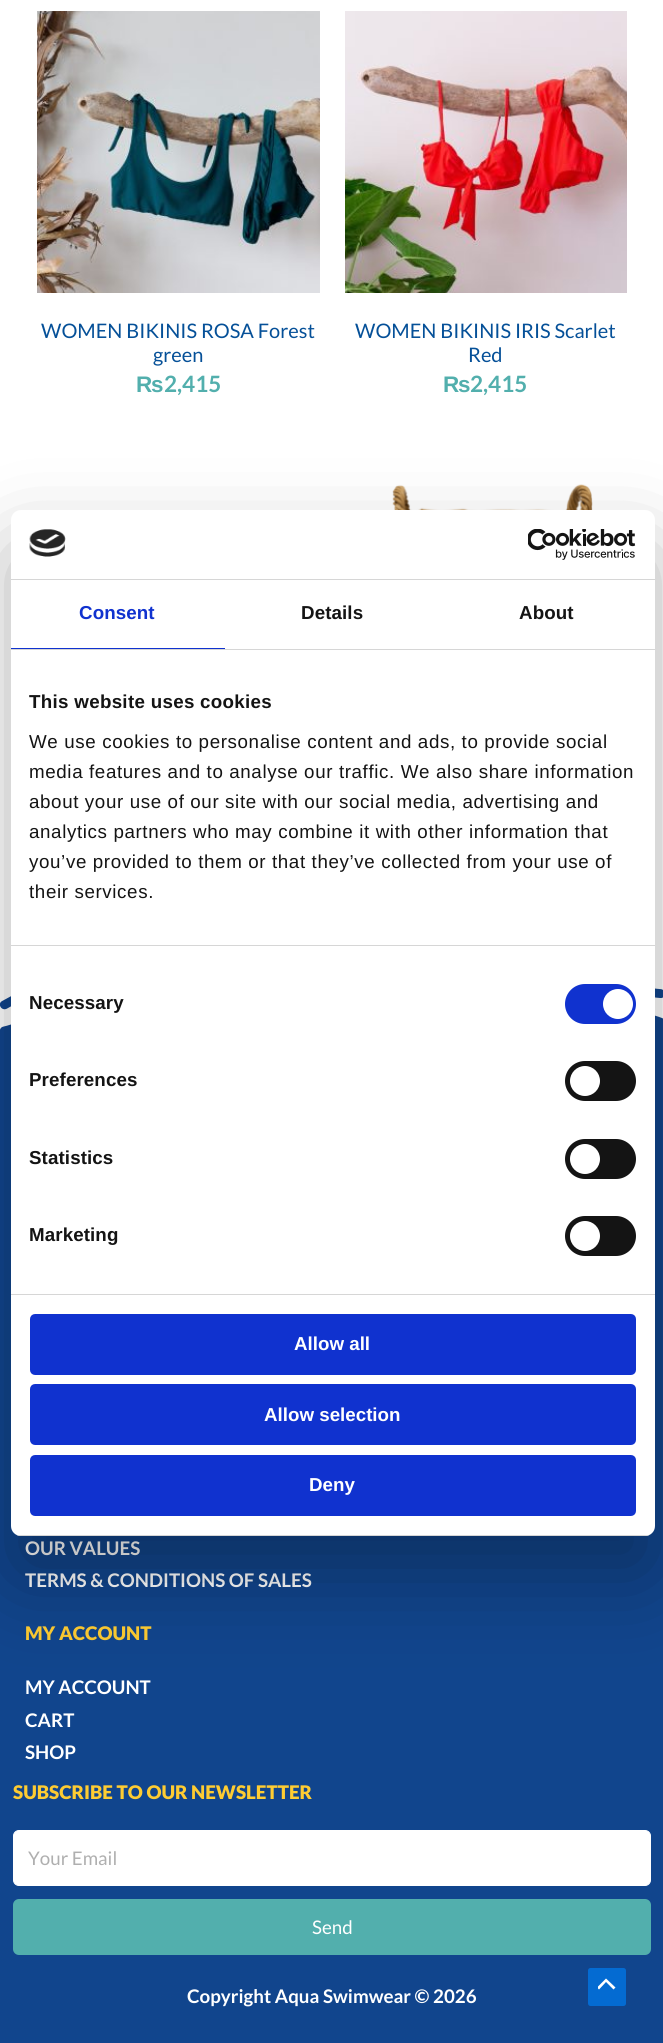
#include <cairo.h>
#include <math.h>
#include <stddef.h>

static cairo_t *ctx;

static void use_color(int r, int g, int b) {
    cairo_set_source_rgb(ctx, r / 255.0, g / 255.0, b / 255.0);
}

static void spaced_text(double x, double y, const char *s, double letter, double word) {
    cairo_move_to(ctx, x, y);
    while (*s) {
        char ch[5] = {0};
        int n = 0;
        do ch[n++] = *s++; while ((*s & 0xC0) == 0x80);
        cairo_show_text(ctx, ch);
        cairo_rel_move_to(ctx, letter + word * (*ch == ' '), 0);
    }
}

static void round_rect(double x, double y, double w, double h, double r) {
    cairo_new_sub_path(ctx);
    cairo_arc(ctx, x + w - r, y + h - r, r, 0, M_PI / 2);
    cairo_arc(ctx, x + r, y + h - r, r, M_PI / 2, M_PI);
    cairo_arc(ctx, x + r, y + r, r, M_PI, 1.5 * M_PI);
    cairo_arc(ctx, x + w - r, y + r, r, 1.5 * M_PI, 2 * M_PI);
    cairo_close_path(ctx);
}

static void shadow(double x, double y, double w, double h, double r, double blur, double alpha) {
    cairo_push_group_with_content(ctx, CAIRO_CONTENT_ALPHA);
    cairo_set_operator(ctx, CAIRO_OPERATOR_SOURCE);
    for (int i = 15; i >= -15 && fmin(w, h) + blur * i / 3 > 0; i -= 2) {
        double e = blur * i / 6;
        cairo_set_source_rgba(ctx, 0, 0, 0, alpha * erfc((i - 1) / 8.5) / 2);
        round_rect(x - e, y - e, w + 2 * e, h + 2 * e, fmax(0, fmin(r + e + blur * .6, fmin(w, h) / 2 + e)));
        cairo_fill(ctx);
    }
    cairo_pattern_t *soft = cairo_pop_group(ctx);
    cairo_mask(ctx, soft);
    cairo_pattern_destroy(soft);
}

static void picture(const char *path, double x, double y, double w, double h) {
    cairo_surface_t *image = cairo_image_surface_create_from_png(path);
    cairo_save(ctx);
    cairo_set_source_surface(ctx, image, x, y);
    cairo_rectangle(ctx, x, y, w, h);
    cairo_fill(ctx);
    cairo_restore(ctx);
    cairo_surface_destroy(image);
}

int main(void) {
    cairo_surface_t *surface = cairo_image_surface_create(CAIRO_FORMAT_RGB24, 663, 2043);
    ctx = cairo_create(surface);
    cairo_font_options_t *options = cairo_font_options_create();
    cairo_font_options_set_hint_metrics(options, CAIRO_HINT_METRICS_OFF);
    cairo_font_options_set_hint_style(options, CAIRO_HINT_STYLE_NONE);
    cairo_set_font_options(ctx, options);
    cairo_set_miter_limit(ctx, 4);
    use_color(255, 255, 255);
    cairo_paint(ctx);
    picture("img1.png", 37, 11, 283, 282);
    cairo_select_font_face(ctx, "Lato", CAIRO_FONT_SLANT_NORMAL, CAIRO_FONT_WEIGHT_NORMAL);
    cairo_set_font_size(ctx, 20);
    use_color(5, 80, 152);
    cairo_move_to(ctx, 41, 338);
    cairo_show_text(ctx, "WOMEN BIKINIS ROSA Forest");
    cairo_move_to(ctx, 153, 362);
    cairo_show_text(ctx, "green");
    cairo_select_font_face(ctx, "Liberation Sans", CAIRO_FONT_SLANT_NORMAL, CAIRO_FONT_WEIGHT_BOLD);
    cairo_set_font_size(ctx, 22.5);
    use_color(82, 175, 173);
    cairo_move_to(ctx, 136, 392);
    cairo_show_text(ctx, "₨");
    cairo_select_font_face(ctx, "Lato", CAIRO_FONT_SLANT_NORMAL, CAIRO_FONT_WEIGHT_BOLD);
    cairo_move_to(ctx, 164, 392);
    cairo_show_text(ctx, "2,415");
    picture("img2.png", 345, 11, 282, 282);
    cairo_select_font_face(ctx, "Lato", CAIRO_FONT_SLANT_NORMAL, CAIRO_FONT_WEIGHT_NORMAL);
    cairo_set_font_size(ctx, 20);
    use_color(5, 80, 152);
    cairo_move_to(ctx, 355, 338);
    cairo_show_text(ctx, "WOMEN BIKINIS IRIS Scarlet");
    cairo_move_to(ctx, 468, 362);
    cairo_show_text(ctx, "Red");
    cairo_select_font_face(ctx, "Liberation Sans", CAIRO_FONT_SLANT_NORMAL, CAIRO_FONT_WEIGHT_BOLD);
    cairo_set_font_size(ctx, 22.5);
    use_color(82, 175, 173);
    cairo_move_to(ctx, 443, 392);
    cairo_show_text(ctx, "₨");
    cairo_select_font_face(ctx, "Lato", CAIRO_FONT_SLANT_NORMAL, CAIRO_FONT_WEIGHT_BOLD);
    cairo_move_to(ctx, 470, 392);
    cairo_show_text(ctx, "2,415");
    picture("img3.png", 376, 484, 217, 26);
    use_color(17, 69, 141);
    cairo_rectangle(ctx, 0, 988, 663, 1055);
    cairo_fill(ctx);
    picture("img4.png", 0, 933, 663, 97);
    cairo_set_font_size(ctx, 18.75);
    use_color(255, 255, 255);
    cairo_move_to(ctx, 25, 1555);
    cairo_show_text(ctx, "OUR VALUES");
    cairo_move_to(ctx, 25, 1587);
    cairo_show_text(ctx, "TERMS & CONDITIONS OF SALES");
    cairo_select_font_face(ctx, "Lato Black", CAIRO_FONT_SLANT_NORMAL, CAIRO_FONT_WEIGHT_NORMAL);
    use_color(254, 204, 50);
    cairo_move_to(ctx, 25, 1640);
    cairo_show_text(ctx, "MY ACCOUNT");
    cairo_select_font_face(ctx, "Lato", CAIRO_FONT_SLANT_NORMAL, CAIRO_FONT_WEIGHT_BOLD);
    use_color(255, 255, 255);
    cairo_move_to(ctx, 25, 1694);
    cairo_show_text(ctx, "MY ACCOUNT");
    cairo_move_to(ctx, 25, 1727);
    cairo_show_text(ctx, "CART");
    cairo_move_to(ctx, 25, 1759);
    cairo_show_text(ctx, "SHOP");
    cairo_select_font_face(ctx, "Lato Black", CAIRO_FONT_SLANT_NORMAL, CAIRO_FONT_WEIGHT_NORMAL);
    use_color(254, 204, 50);
    cairo_move_to(ctx, 13, 1799);
    cairo_show_text(ctx, "SUBSCRIBE TO OUR NEWSLETTER");
    use_color(255, 255, 255);
    round_rect(13.5, 1830.5, 637, 55, 5.5);
    cairo_fill_preserve(ctx);
    cairo_set_line_width(ctx, 1);
    cairo_stroke(ctx);
    cairo_select_font_face(ctx, "Lato", CAIRO_FONT_SLANT_NORMAL, CAIRO_FONT_WEIGHT_NORMAL);
    use_color(175, 175, 175);
    cairo_move_to(ctx, 28, 1865);
    cairo_show_text(ctx, "Your Email");
    use_color(82, 175, 173);
    round_rect(13, 1899, 638, 56, 6);
    cairo_fill(ctx);
    use_color(255, 255, 255);
    cairo_move_to(ctx, 312, 1934);
    cairo_show_text(ctx, "Send");
    cairo_select_font_face(ctx, "Lato", CAIRO_FONT_SLANT_NORMAL, CAIRO_FONT_WEIGHT_BOLD);
    cairo_move_to(ctx, 187, 2003);
    cairo_show_text(ctx, "Copyright Aqua Swimwear © 2026");
    use_color(0, 0, 0);
    shadow(11, 550, 644, 1026, 10, 42.5, 0.3);
    use_color(255, 255, 255);
    round_rect(11, 510, 644, 1026, 10);
    cairo_fill(ctx);
    use_color(214, 214, 214);
    cairo_rectangle(ctx, 11, 579, 644, 1);
    cairo_fill(ctx);
    picture("img5.png", 29, 529, 37, 28);
    picture("img6.png", 528, 529, 108, 31);
    cairo_rectangle(ctx, 11, 649, 644, 1);
    cairo_fill(ctx);
    use_color(16, 50, 207);
    cairo_rectangle(ctx, 11, 648, 214, 1);
    cairo_fill(ctx);
    cairo_select_font_face(ctx, "Liberation Sans", CAIRO_FONT_SLANT_NORMAL, CAIRO_FONT_WEIGHT_BOLD);
    spaced_text(79, 619, "Consent", 0.1, 0);
    use_color(20, 20, 20);
    spaced_text(301, 619, "Details", 0.1, 0);
    spaced_text(519, 619, "About", 0.1, 0);
    use_color(214, 214, 214);
    cairo_rectangle(ctx, 11, 945, 644, 1);
    cairo_fill(ctx);
    use_color(20, 20, 20);
    spaced_text(29, 708, "This website uses cookies", 0.3, 0);
    cairo_select_font_face(ctx, "Liberation Sans", CAIRO_FONT_SLANT_NORMAL, CAIRO_FONT_WEIGHT_NORMAL);
    spaced_text(29, 748, "We use cookies to personalise content and ads, to provide social", 0.62, 0);
    spaced_text(29, 778, "media features and to analyse our traffic. We also share information", 0.62, 0);
    spaced_text(29, 808, "about your use of our site with our social media, advertising and", 0.62, 0);
    spaced_text(29, 838, "analytics partners who may combine it with other information that", 0.62, 0);
    spaced_text(29, 868, "you’ve provided to them or that they’ve collected from your use of", 0.62, 0);
    spaced_text(29, 898, "their services.", 0.62, 0);
    use_color(214, 214, 214);
    cairo_rectangle(ctx, 11, 1294, 644, 1);
    cairo_fill(ctx);
    cairo_select_font_face(ctx, "Liberation Sans", CAIRO_FONT_SLANT_NORMAL, CAIRO_FONT_WEIGHT_BOLD);
    use_color(20, 20, 20);
    spaced_text(29, 1009, "Necessary", 0.1, 0);
    use_color(16, 50, 207);
    round_rect(565, 984, 71, 40, 20);
    cairo_fill(ctx);
    use_color(255, 255, 255);
    cairo_arc(ctx, 618, 1004, 15, 0, 2 * M_PI);
    cairo_fill(ctx);
    use_color(20, 20, 20);
    spaced_text(29, 1086, "Preferences", 0.1, 0);
    round_rect(565, 1061, 71, 40, 20);
    cairo_fill(ctx);
    use_color(255, 255, 255);
    cairo_arc(ctx, 585, 1081, 15, 0, 2 * M_PI);
    cairo_fill(ctx);
    use_color(20, 20, 20);
    spaced_text(29, 1164, "Statistics", 0.1, 0);
    round_rect(565, 1139, 71, 40, 20);
    cairo_fill(ctx);
    use_color(255, 255, 255);
    cairo_arc(ctx, 585, 1159, 15, 0, 2 * M_PI);
    cairo_fill(ctx);
    use_color(20, 20, 20);
    spaced_text(29, 1241, "Marketing", 0.1, 0);
    round_rect(565, 1216, 71, 40, 20);
    cairo_fill(ctx);
    use_color(255, 255, 255);
    cairo_arc(ctx, 585, 1236, 15, 0, 2 * M_PI);
    cairo_fill(ctx);
    cairo_save(ctx);
    round_rect(11, 510, 644, 1026, 10);
    cairo_clip(ctx);
    use_color(214, 214, 214);
    cairo_rectangle(ctx, 11, 1535, 644, 1);
    cairo_fill(ctx);
    cairo_restore(ctx);
    use_color(16, 50, 207);
    round_rect(31.5, 1315.5, 603, 58, 3.5);
    cairo_fill_preserve(ctx);
    cairo_set_line_width(ctx, 3);
    cairo_stroke(ctx);
    use_color(255, 255, 255);
    cairo_move_to(ctx, 294, 1350);
    cairo_show_text(ctx, "Allow all");
    use_color(16, 50, 207);
    round_rect(31.5, 1385.5, 603, 58, 3.5);
    cairo_fill_preserve(ctx);
    cairo_stroke(ctx);
    use_color(255, 255, 255);
    cairo_move_to(ctx, 264, 1421);
    cairo_show_text(ctx, "Allow selection");
    use_color(16, 50, 207);
    round_rect(31.5, 1456.5, 603, 58, 3.5);
    cairo_fill_preserve(ctx);
    cairo_stroke(ctx);
    use_color(255, 255, 255);
    cairo_move_to(ctx, 309, 1491);
    cairo_show_text(ctx, "Deny");
    use_color(4, 107, 210);
    round_rect(588, 1968, 38, 38, 2.5);
    cairo_fill(ctx);
    cairo_save(ctx);
    cairo_rectangle(ctx, 598, 1976, 18, 15);
    cairo_clip(ctx);
    use_color(255, 255, 255);
    cairo_new_path(ctx);
    cairo_move_to(ctx, 615.5, 1987.5);
    cairo_line_to(ctx, 606, 1978.5);
    cairo_line_to(ctx, 597, 1987.5);
    cairo_line_to(ctx, 599, 1989.5);
    cairo_line_to(ctx, 606, 1982);
    cairo_line_to(ctx, 613.5, 1989.5);
    cairo_close_path(ctx);
    cairo_fill(ctx);
    cairo_restore(ctx);
    cairo_surface_write_to_png(surface, "result.png");
    cairo_font_options_destroy(options);
    cairo_destroy(ctx);
    cairo_surface_destroy(surface);
    return 0;
}
